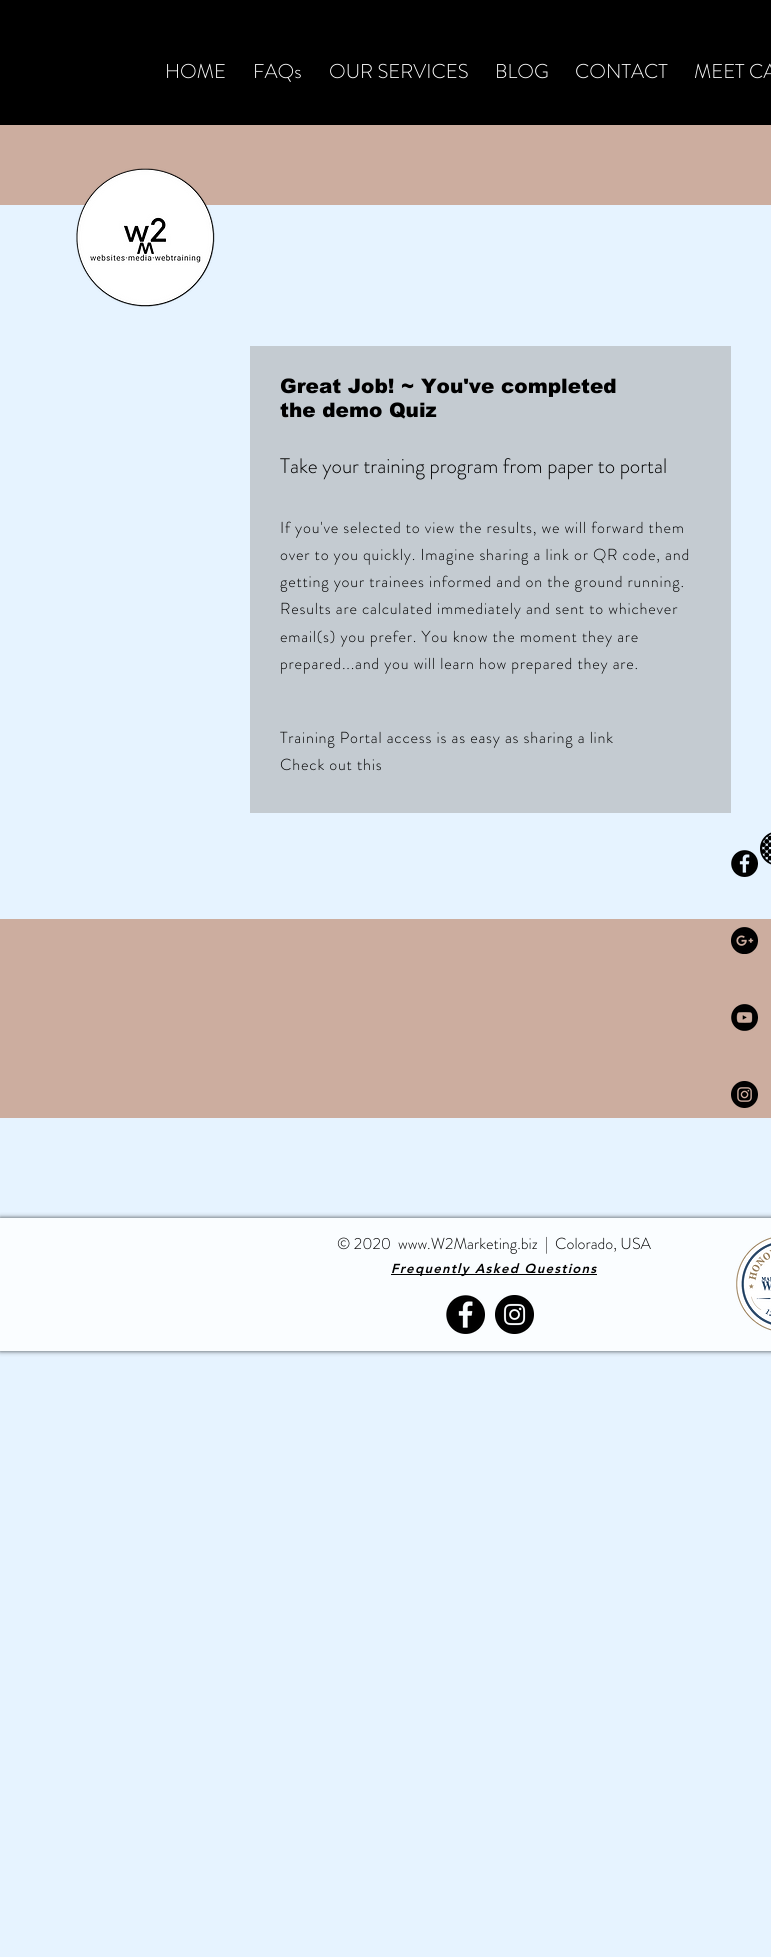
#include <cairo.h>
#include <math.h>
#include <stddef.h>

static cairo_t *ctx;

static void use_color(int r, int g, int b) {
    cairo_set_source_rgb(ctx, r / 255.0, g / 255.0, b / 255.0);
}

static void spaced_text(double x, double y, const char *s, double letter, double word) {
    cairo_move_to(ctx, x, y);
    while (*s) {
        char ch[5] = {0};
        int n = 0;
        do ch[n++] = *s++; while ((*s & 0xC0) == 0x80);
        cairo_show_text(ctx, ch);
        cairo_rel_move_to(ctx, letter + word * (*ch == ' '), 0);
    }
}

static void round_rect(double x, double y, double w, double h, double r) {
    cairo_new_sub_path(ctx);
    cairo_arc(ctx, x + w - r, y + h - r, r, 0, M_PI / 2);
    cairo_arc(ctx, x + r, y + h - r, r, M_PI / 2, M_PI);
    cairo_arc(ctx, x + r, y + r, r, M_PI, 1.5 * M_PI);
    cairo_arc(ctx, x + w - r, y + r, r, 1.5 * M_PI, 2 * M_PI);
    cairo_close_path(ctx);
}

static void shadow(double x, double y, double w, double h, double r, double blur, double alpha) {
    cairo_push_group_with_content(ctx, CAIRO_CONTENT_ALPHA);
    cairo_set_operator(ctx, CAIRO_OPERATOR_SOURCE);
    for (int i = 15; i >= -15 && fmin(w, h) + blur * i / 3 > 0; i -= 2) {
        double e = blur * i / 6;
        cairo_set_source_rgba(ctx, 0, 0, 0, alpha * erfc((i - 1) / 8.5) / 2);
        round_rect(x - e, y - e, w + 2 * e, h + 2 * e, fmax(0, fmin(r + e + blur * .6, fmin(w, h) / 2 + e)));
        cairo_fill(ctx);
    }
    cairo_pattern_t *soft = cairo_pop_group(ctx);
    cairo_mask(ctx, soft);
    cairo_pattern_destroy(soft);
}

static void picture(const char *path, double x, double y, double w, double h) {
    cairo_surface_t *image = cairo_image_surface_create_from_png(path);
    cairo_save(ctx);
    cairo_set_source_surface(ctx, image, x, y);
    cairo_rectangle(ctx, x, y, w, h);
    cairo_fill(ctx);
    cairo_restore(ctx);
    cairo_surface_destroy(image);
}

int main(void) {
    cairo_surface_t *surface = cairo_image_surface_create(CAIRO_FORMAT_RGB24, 771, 1957);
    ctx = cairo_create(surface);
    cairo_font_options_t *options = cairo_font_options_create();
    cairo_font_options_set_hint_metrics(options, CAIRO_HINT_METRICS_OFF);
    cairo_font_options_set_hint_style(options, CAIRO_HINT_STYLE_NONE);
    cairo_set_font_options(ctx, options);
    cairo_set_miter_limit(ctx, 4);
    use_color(230, 243, 255);
    cairo_paint(ctx);
    use_color(0, 0, 0);
    cairo_rectangle(ctx, 0, 0, 771, 125);
    cairo_fill(ctx);
    cairo_select_font_face(ctx, "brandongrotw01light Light", CAIRO_FONT_SLANT_NORMAL, CAIRO_FONT_WEIGHT_NORMAL);
    cairo_set_font_size(ctx, 20);
    use_color(255, 255, 255);
    cairo_move_to(ctx, 165, 78);
    cairo_show_text(ctx, "HOME");
    cairo_move_to(ctx, 253, 78);
    cairo_show_text(ctx, "FAQs");
    cairo_move_to(ctx, 329, 78);
    cairo_show_text(ctx, "OUR SERVICES");
    cairo_move_to(ctx, 495, 78);
    cairo_show_text(ctx, "BLOG");
    cairo_move_to(ctx, 575, 78);
    cairo_show_text(ctx, "CONTACT");
    cairo_move_to(ctx, 694, 78);
    cairo_show_text(ctx, "MEET CA");
    use_color(204, 173, 159);
    cairo_rectangle(ctx, 0, 125, 771, 993);
    cairo_fill(ctx);
    use_color(230, 243, 255);
    cairo_rectangle(ctx, 0, 205, 771, 714);
    cairo_fill(ctx);
    picture("img1.png", 76, 168, 139, 139);
    use_color(196, 203, 209);
    cairo_rectangle(ctx, 250, 346, 481, 467);
    cairo_fill(ctx);
    cairo_select_font_face(ctx, "arial Black", CAIRO_FONT_SLANT_NORMAL, CAIRO_FONT_WEIGHT_NORMAL);
    use_color(0, 0, 0);
    cairo_move_to(ctx, 280, 393);
    cairo_show_text(ctx, "Great Job! ~ You've completed");
    cairo_move_to(ctx, 280, 417);
    cairo_show_text(ctx, "the demo Quiz");
    cairo_select_font_face(ctx, "brandongrotw01light Light", CAIRO_FONT_SLANT_NORMAL, CAIRO_FONT_WEIGHT_NORMAL);
    cairo_set_font_size(ctx, 21);
    cairo_move_to(ctx, 280, 473);
    cairo_show_text(ctx, "Take your training program from paper to portal");
    cairo_set_font_size(ctx, 16);
    spaced_text(280, 533, "If you've selected to view the results, we will forward them", 0.8, 0);
    spaced_text(280, 560, "over to you quickly. Imagine sharing a link or QR code, and", 0.8, 0);
    spaced_text(280, 587, "getting your trainees informed and on the ground running.", 0.8, 0);
    spaced_text(280, 614, "Results are calculated immediately and sent to whichever", 0.8, 0);
    spaced_text(280, 642, "email(s) you prefer. You know the moment they are", 0.8, 0);
    spaced_text(280, 669, "prepared...and you will learn how prepared they are.", 0.8, 0);
    spaced_text(280, 743, "Training Portal access is as easy as sharing a link", 0.8, 0);
    spaced_text(280, 770, "Check out this", 0.8, 0);
    picture("img2.png", 760, 832, 11, 33);
    picture("img3.png", 731, 850, 27, 27);
    picture("img4.png", 731, 927, 27, 27);
    picture("img5.png", 731, 1004, 27, 27);
    picture("img6.png", 731, 1081, 27, 27);
    use_color(0, 0, 0);
    shadow(0, 1218, 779, 133, 0, 2.5, 0.7);
    use_color(250, 253, 255);
    cairo_rectangle(ctx, 0, 1218, 771, 133);
    cairo_fill(ctx);
    use_color(0, 0, 0);
    cairo_move_to(ctx, 337, 1249);
    cairo_show_text(ctx, "© 2020");
    cairo_move_to(ctx, 398, 1249);
    cairo_show_text(ctx, "www.W2Marketing.biz");
    cairo_move_to(ctx, 545, 1249);
    cairo_show_text(ctx, "|  Colorado, USA");
    picture("img7.png", 736, 1237, 35, 94);
    cairo_rectangle(ctx, 391, 1274, 206, 1);
    cairo_fill(ctx);
    cairo_select_font_face(ctx, "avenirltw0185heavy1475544 Black", CAIRO_FONT_SLANT_ITALIC, CAIRO_FONT_WEIGHT_NORMAL);
    cairo_set_font_size(ctx, 13);
    spaced_text(391, 1273, "Frequently Asked Questions", 1.3, 0);
    picture("img8.png", 446, 1295, 39, 39);
    picture("img9.png", 495, 1295, 39, 39);
    cairo_surface_write_to_png(surface, "result.png");
    cairo_font_options_destroy(options);
    cairo_destroy(ctx);
    cairo_surface_destroy(surface);
    return 0;
}
